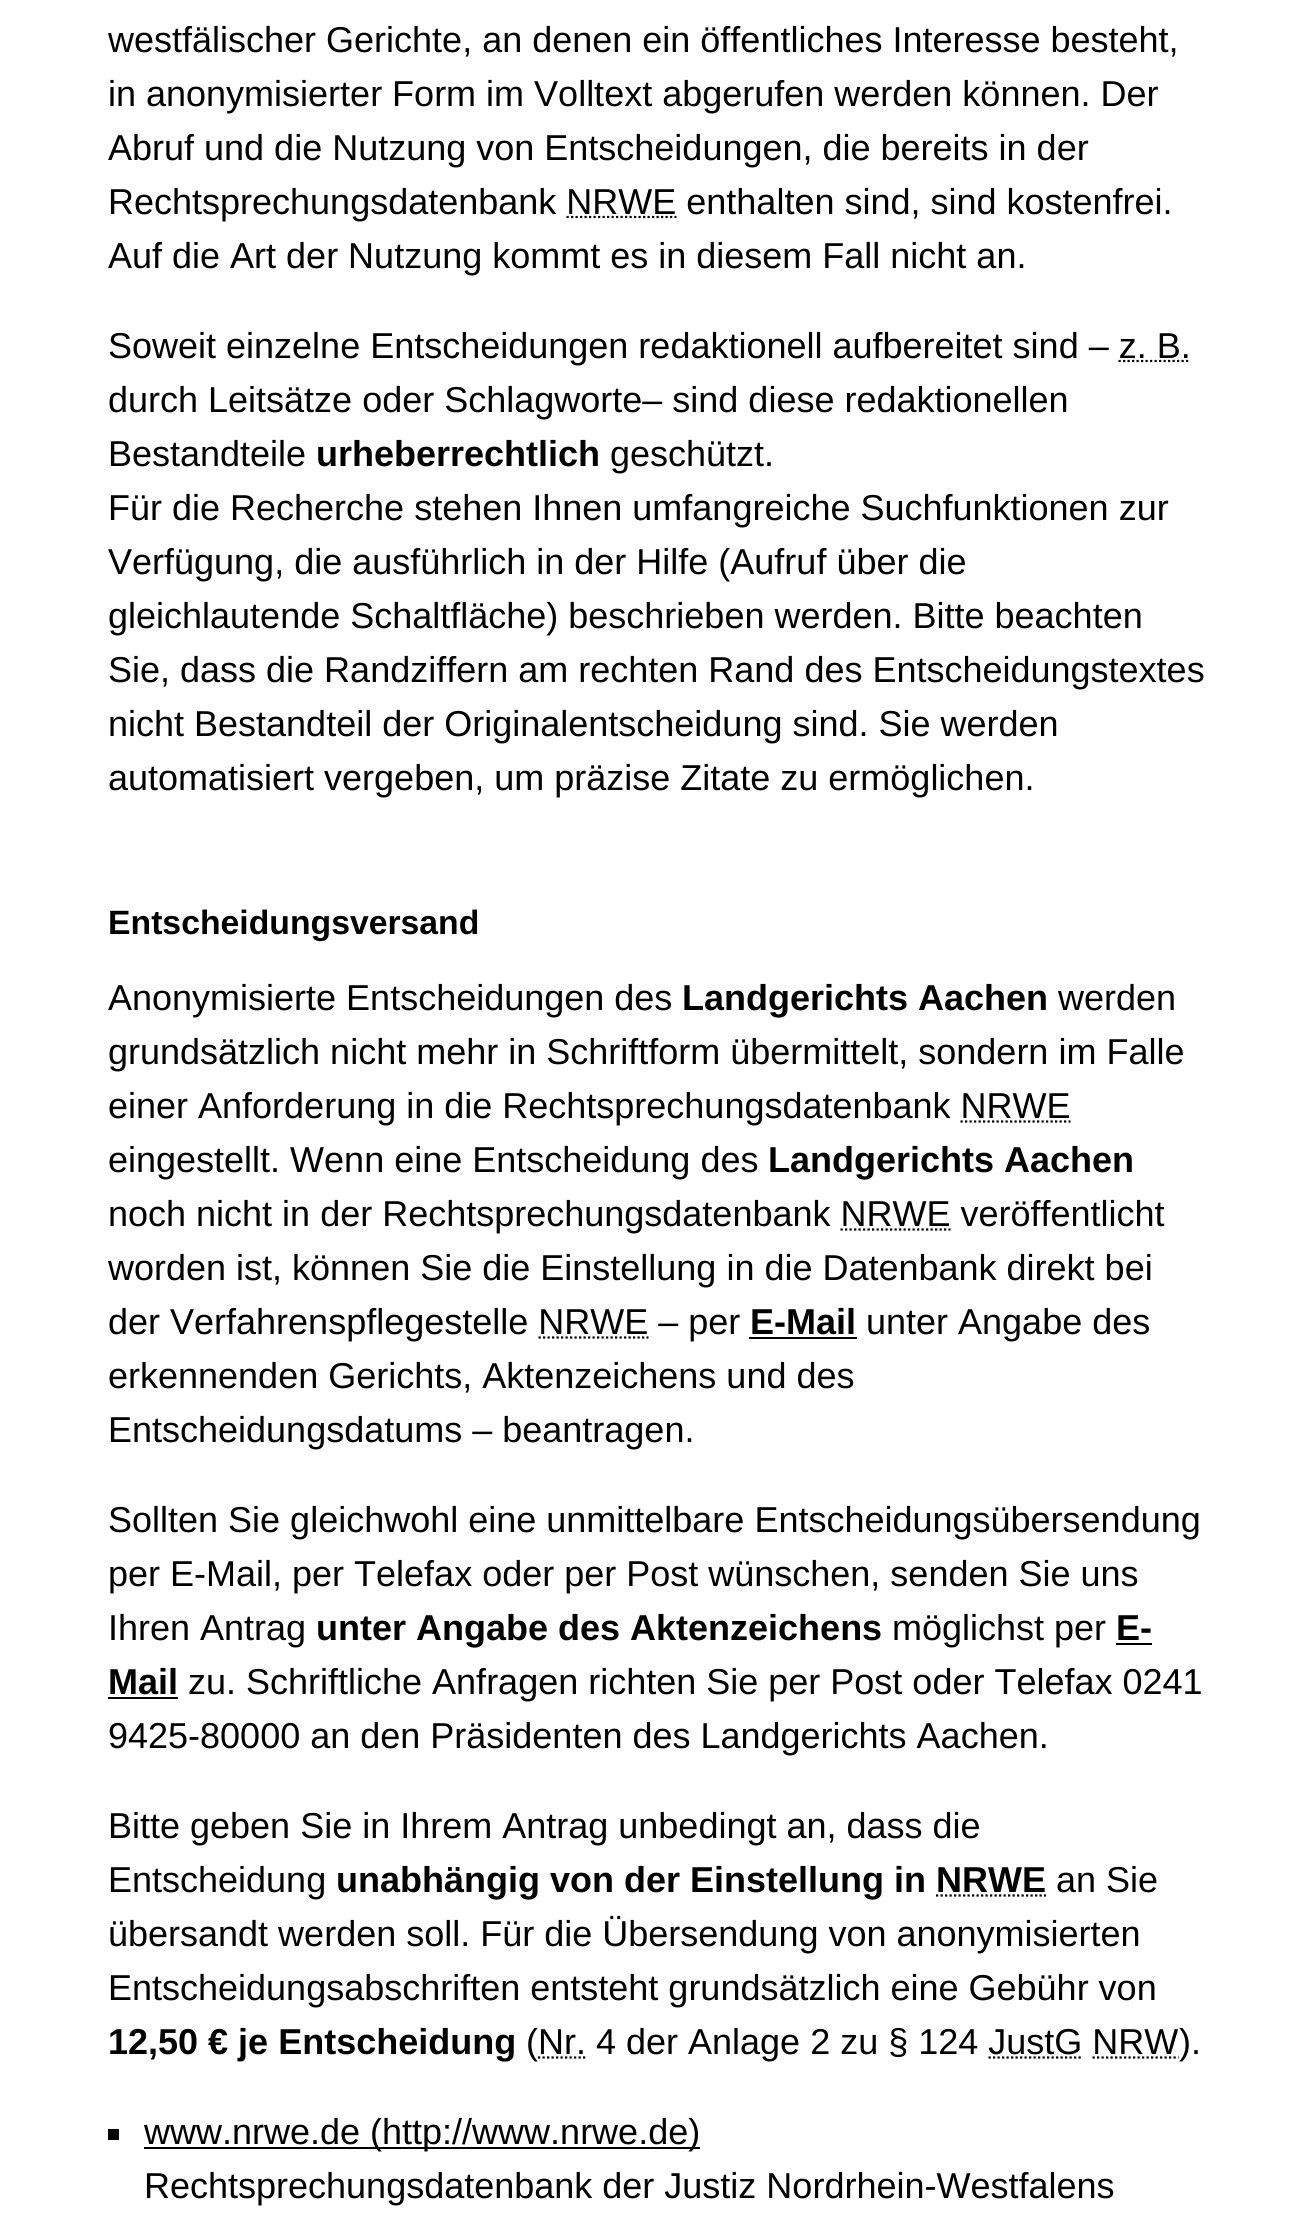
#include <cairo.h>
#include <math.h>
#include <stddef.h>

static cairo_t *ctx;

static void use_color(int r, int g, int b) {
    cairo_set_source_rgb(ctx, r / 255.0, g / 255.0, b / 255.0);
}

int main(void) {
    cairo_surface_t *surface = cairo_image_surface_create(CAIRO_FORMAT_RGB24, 1316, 2217);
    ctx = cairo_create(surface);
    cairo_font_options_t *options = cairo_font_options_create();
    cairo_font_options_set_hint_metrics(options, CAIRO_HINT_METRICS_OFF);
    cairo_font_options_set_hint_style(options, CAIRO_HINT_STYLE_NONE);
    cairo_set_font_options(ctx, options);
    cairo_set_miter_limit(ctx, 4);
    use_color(255, 255, 255);
    cairo_paint(ctx);
    cairo_select_font_face(ctx, "Liberation Sans", CAIRO_FONT_SLANT_NORMAL, CAIRO_FONT_WEIGHT_NORMAL);
    cairo_set_font_size(ctx, 36);
    use_color(0, 0, 0);
    cairo_move_to(ctx, 108, 52);
    cairo_show_text(ctx, "westfälischer Gerichte, an denen ein öffentliches Interesse besteht,");
    cairo_move_to(ctx, 108, 106);
    cairo_show_text(ctx, "in anonymisierter Form im Volltext abgerufen werden können. Der");
    cairo_move_to(ctx, 108, 160);
    cairo_show_text(ctx, "Abruf und die Nutzung von Entscheidungen, die bereits in der");
    cairo_move_to(ctx, 108, 214);
    cairo_show_text(ctx, "Rechtsprechungsdatenbank NRWE enthalten sind, sind kostenfrei.");
    cairo_new_path(ctx);
    cairo_move_to(ctx, 566.5, 217);
    cairo_line_to(ctx, 676.5, 217);
    cairo_set_line_width(ctx, 2.2);
    cairo_set_dash(ctx, (double[]){2.25, 2.25}, 2, 0);
    cairo_stroke(ctx);
    cairo_move_to(ctx, 108, 268);
    cairo_show_text(ctx, "Auf die Art der Nutzung kommt es in diesem Fall nicht an.");
    cairo_move_to(ctx, 108, 358);
    cairo_show_text(ctx, "Soweit einzelne Entscheidungen redaktionell aufbereitet sind – z. B.");
    cairo_new_path(ctx);
    cairo_move_to(ctx, 1118.5, 361);
    cairo_line_to(ctx, 1190.5, 361);
    cairo_stroke(ctx);
    cairo_move_to(ctx, 108, 412);
    cairo_show_text(ctx, "durch Leitsätze oder Schlagworte– sind diese redaktionellen");
    cairo_move_to(ctx, 108, 466);
    cairo_show_text(ctx, "Bestandteile");
    cairo_select_font_face(ctx, "Liberation Sans", CAIRO_FONT_SLANT_NORMAL, CAIRO_FONT_WEIGHT_BOLD);
    cairo_move_to(ctx, 316, 466);
    cairo_show_text(ctx, "urheberrechtlich");
    cairo_select_font_face(ctx, "Liberation Sans", CAIRO_FONT_SLANT_NORMAL, CAIRO_FONT_WEIGHT_NORMAL);
    cairo_move_to(ctx, 610, 466);
    cairo_show_text(ctx, "geschützt.");
    cairo_move_to(ctx, 108, 520);
    cairo_show_text(ctx, "Für die Recherche stehen Ihnen umfangreiche Suchfunktionen zur");
    cairo_move_to(ctx, 108, 574);
    cairo_show_text(ctx, "Verfügung, die ausführlich in der Hilfe (Aufruf über die");
    cairo_move_to(ctx, 108, 628);
    cairo_show_text(ctx, "gleichlautende Schaltfläche) beschrieben werden. Bitte beachten");
    cairo_move_to(ctx, 108, 682);
    cairo_show_text(ctx, "Sie, dass die Randziffern am rechten Rand des Entscheidungstextes");
    cairo_move_to(ctx, 108, 736);
    cairo_show_text(ctx, "nicht Bestandteil der Originalentscheidung sind. Sie werden");
    cairo_move_to(ctx, 108, 790);
    cairo_show_text(ctx, "automatisiert vergeben, um präzise Zitate zu ermöglichen.");
    cairo_select_font_face(ctx, "Liberation Sans", CAIRO_FONT_SLANT_NORMAL, CAIRO_FONT_WEIGHT_BOLD);
    cairo_set_font_size(ctx, 33.75);
    cairo_move_to(ctx, 108, 934);
    cairo_show_text(ctx, "Entscheidungsversand");
    cairo_select_font_face(ctx, "Liberation Sans", CAIRO_FONT_SLANT_NORMAL, CAIRO_FONT_WEIGHT_NORMAL);
    cairo_set_font_size(ctx, 36);
    cairo_move_to(ctx, 108, 1010);
    cairo_show_text(ctx, "Anonymisierte Entscheidungen des");
    cairo_select_font_face(ctx, "Liberation Sans", CAIRO_FONT_SLANT_NORMAL, CAIRO_FONT_WEIGHT_BOLD);
    cairo_move_to(ctx, 682, 1010);
    cairo_show_text(ctx, "Landgerichts Aachen");
    cairo_select_font_face(ctx, "Liberation Sans", CAIRO_FONT_SLANT_NORMAL, CAIRO_FONT_WEIGHT_NORMAL);
    cairo_move_to(ctx, 1058, 1010);
    cairo_show_text(ctx, "werden");
    cairo_move_to(ctx, 108, 1064);
    cairo_show_text(ctx, "grundsätzlich nicht mehr in Schriftform übermittelt, sondern im Falle");
    cairo_move_to(ctx, 108, 1118);
    cairo_show_text(ctx, "einer Anforderung in die Rechtsprechungsdatenbank NRWE");
    cairo_new_path(ctx);
    cairo_move_to(ctx, 960.5, 1121.5);
    cairo_line_to(ctx, 1070.5, 1121.5);
    cairo_stroke(ctx);
    cairo_move_to(ctx, 108, 1172);
    cairo_show_text(ctx, "eingestellt. Wenn eine Entscheidung des");
    cairo_select_font_face(ctx, "Liberation Sans", CAIRO_FONT_SLANT_NORMAL, CAIRO_FONT_WEIGHT_BOLD);
    cairo_move_to(ctx, 768, 1172);
    cairo_show_text(ctx, "Landgerichts Aachen");
    cairo_select_font_face(ctx, "Liberation Sans", CAIRO_FONT_SLANT_NORMAL, CAIRO_FONT_WEIGHT_NORMAL);
    cairo_move_to(ctx, 108, 1226);
    cairo_show_text(ctx, "noch nicht in der Rechtsprechungsdatenbank NRWE veröffentlicht");
    cairo_new_path(ctx);
    cairo_move_to(ctx, 840.5, 1229.5);
    cairo_line_to(ctx, 950.5, 1229.5);
    cairo_stroke(ctx);
    cairo_move_to(ctx, 108, 1280);
    cairo_show_text(ctx, "worden ist, können Sie die Einstellung in die Datenbank direkt bei");
    cairo_move_to(ctx, 108, 1334);
    cairo_show_text(ctx, "der Verfahrenspflegestelle NRWE – per");
    cairo_select_font_face(ctx, "Liberation Sans", CAIRO_FONT_SLANT_NORMAL, CAIRO_FONT_WEIGHT_BOLD);
    cairo_move_to(ctx, 750, 1334);
    cairo_show_text(ctx, "E-Mail");
    cairo_rectangle(ctx, 749, 1337, 108, 2);
    cairo_fill(ctx);
    cairo_select_font_face(ctx, "Liberation Sans", CAIRO_FONT_SLANT_NORMAL, CAIRO_FONT_WEIGHT_NORMAL);
    cairo_move_to(ctx, 866, 1334);
    cairo_show_text(ctx, "unter Angabe des");
    cairo_new_path(ctx);
    cairo_move_to(ctx, 538.5, 1337.5);
    cairo_line_to(ctx, 648.5, 1337.5);
    cairo_stroke(ctx);
    cairo_move_to(ctx, 108, 1388);
    cairo_show_text(ctx, "erkennenden Gerichts, Aktenzeichens und des");
    cairo_move_to(ctx, 108, 1442);
    cairo_show_text(ctx, "Entscheidungsdatums – beantragen.");
    cairo_move_to(ctx, 108, 1532);
    cairo_show_text(ctx, "Sollten Sie gleichwohl eine unmittelbare Entscheidungsübersendung");
    cairo_move_to(ctx, 108, 1586);
    cairo_show_text(ctx, "per E-Mail, per Telefax oder per Post wünschen, senden Sie uns");
    cairo_move_to(ctx, 108, 1640);
    cairo_show_text(ctx, "Ihren Antrag");
    cairo_select_font_face(ctx, "Liberation Sans", CAIRO_FONT_SLANT_NORMAL, CAIRO_FONT_WEIGHT_BOLD);
    cairo_move_to(ctx, 316, 1640);
    cairo_show_text(ctx, "unter Angabe des Aktenzeichens");
    cairo_select_font_face(ctx, "Liberation Sans", CAIRO_FONT_SLANT_NORMAL, CAIRO_FONT_WEIGHT_NORMAL);
    cairo_move_to(ctx, 892, 1640);
    cairo_show_text(ctx, "möglichst per");
    cairo_select_font_face(ctx, "Liberation Sans", CAIRO_FONT_SLANT_NORMAL, CAIRO_FONT_WEIGHT_BOLD);
    cairo_move_to(ctx, 1116, 1640);
    cairo_show_text(ctx, "E-");
    cairo_rectangle(ctx, 1116, 1643, 36, 2);
    cairo_fill(ctx);
    cairo_move_to(ctx, 108, 1694);
    cairo_show_text(ctx, "Mail");
    cairo_rectangle(ctx, 108, 1697, 70, 2);
    cairo_fill(ctx);
    cairo_select_font_face(ctx, "Liberation Sans", CAIRO_FONT_SLANT_NORMAL, CAIRO_FONT_WEIGHT_NORMAL);
    cairo_move_to(ctx, 188, 1694);
    cairo_show_text(ctx, "zu. Schriftliche Anfragen richten Sie per Post oder Telefax 0241");
    cairo_move_to(ctx, 108, 1748);
    cairo_show_text(ctx, "9425-80000 an den Präsidenten des Landgerichts Aachen.");
    cairo_move_to(ctx, 108, 1838);
    cairo_show_text(ctx, "Bitte geben Sie in Ihrem Antrag unbedingt an, dass die");
    cairo_move_to(ctx, 108, 1892);
    cairo_show_text(ctx, "Entscheidung");
    cairo_select_font_face(ctx, "Liberation Sans", CAIRO_FONT_SLANT_NORMAL, CAIRO_FONT_WEIGHT_BOLD);
    cairo_move_to(ctx, 336, 1892);
    cairo_show_text(ctx, "unabhängig von der Einstellung in NRWE");
    cairo_select_font_face(ctx, "Liberation Sans", CAIRO_FONT_SLANT_NORMAL, CAIRO_FONT_WEIGHT_NORMAL);
    cairo_move_to(ctx, 1056, 1892);
    cairo_show_text(ctx, "an Sie");
    cairo_new_path(ctx);
    cairo_move_to(ctx, 936, 1895.5);
    cairo_line_to(ctx, 1046, 1895.5);
    cairo_stroke(ctx);
    cairo_move_to(ctx, 108, 1946);
    cairo_show_text(ctx, "übersandt werden soll. Für die Übersendung von anonymisierten");
    cairo_move_to(ctx, 108, 2000);
    cairo_show_text(ctx, "Entscheidungsabschriften entsteht grundsätzlich eine Gebühr von");
    cairo_select_font_face(ctx, "Liberation Sans", CAIRO_FONT_SLANT_NORMAL, CAIRO_FONT_WEIGHT_BOLD);
    cairo_move_to(ctx, 108, 2054);
    cairo_show_text(ctx, "12,50 € je Entscheidung");
    cairo_select_font_face(ctx, "Liberation Sans", CAIRO_FONT_SLANT_NORMAL, CAIRO_FONT_WEIGHT_NORMAL);
    cairo_move_to(ctx, 526, 2054);
    cairo_show_text(ctx, "(Nr. 4 der Anlage 2 zu § 124 JustG NRW");
    cairo_new_path(ctx);
    cairo_move_to(ctx, 1092.5, 2057.5);
    cairo_line_to(ctx, 1178.5, 2057.5);
    cairo_stroke(ctx);
    cairo_move_to(ctx, 1179, 2054);
    cairo_show_text(ctx, ").");
    cairo_new_path(ctx);
    cairo_move_to(ctx, 538, 2057.5);
    cairo_line_to(ctx, 586, 2057.5);
    cairo_stroke(ctx);
    cairo_new_path(ctx);
    cairo_move_to(ctx, 988.5, 2057.5);
    cairo_line_to(ctx, 1082.5, 2057.5);
    cairo_stroke(ctx);
    cairo_rectangle(ctx, 108, 2129, 11, 11);
    cairo_fill(ctx);
    cairo_rectangle(ctx, 144, 2147, 556, 2);
    cairo_fill(ctx);
    cairo_move_to(ctx, 144, 2144);
    cairo_show_text(ctx, "www.nrwe.de (http://www.nrwe.de)");
    cairo_move_to(ctx, 144, 2198);
    cairo_show_text(ctx, "Rechtsprechungsdatenbank der Justiz Nordrhein-Westfalens");
    cairo_surface_write_to_png(surface, "result.png");
    cairo_font_options_destroy(options);
    cairo_destroy(ctx);
    cairo_surface_destroy(surface);
    return 0;
}
